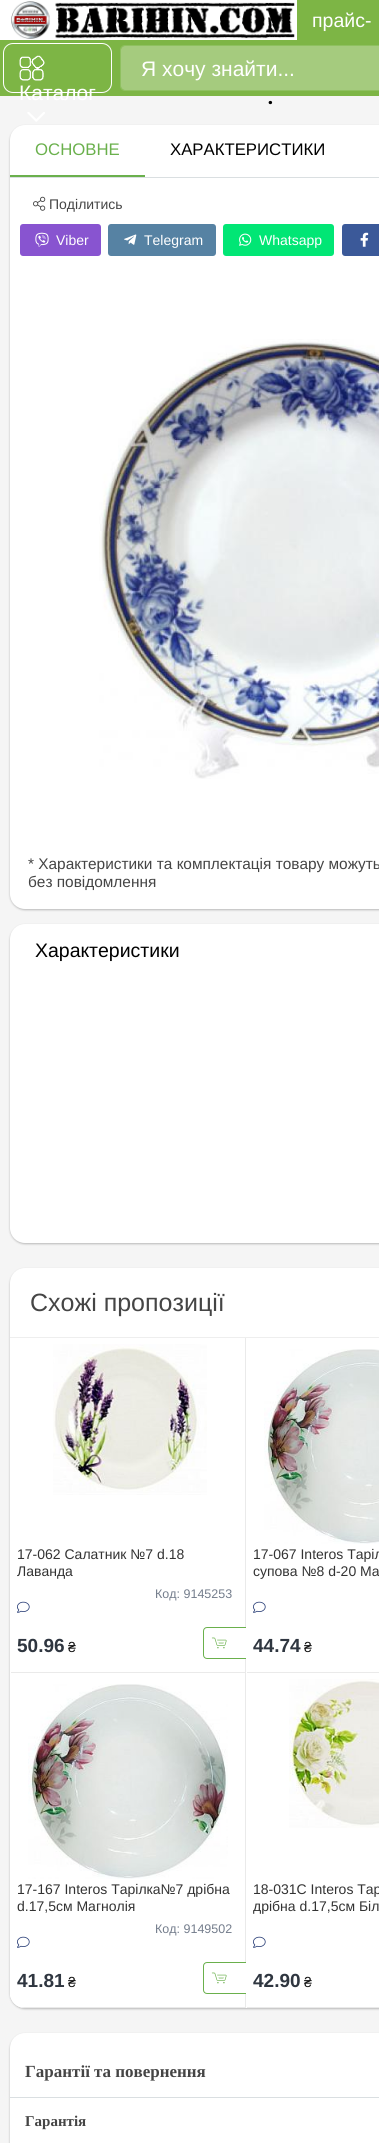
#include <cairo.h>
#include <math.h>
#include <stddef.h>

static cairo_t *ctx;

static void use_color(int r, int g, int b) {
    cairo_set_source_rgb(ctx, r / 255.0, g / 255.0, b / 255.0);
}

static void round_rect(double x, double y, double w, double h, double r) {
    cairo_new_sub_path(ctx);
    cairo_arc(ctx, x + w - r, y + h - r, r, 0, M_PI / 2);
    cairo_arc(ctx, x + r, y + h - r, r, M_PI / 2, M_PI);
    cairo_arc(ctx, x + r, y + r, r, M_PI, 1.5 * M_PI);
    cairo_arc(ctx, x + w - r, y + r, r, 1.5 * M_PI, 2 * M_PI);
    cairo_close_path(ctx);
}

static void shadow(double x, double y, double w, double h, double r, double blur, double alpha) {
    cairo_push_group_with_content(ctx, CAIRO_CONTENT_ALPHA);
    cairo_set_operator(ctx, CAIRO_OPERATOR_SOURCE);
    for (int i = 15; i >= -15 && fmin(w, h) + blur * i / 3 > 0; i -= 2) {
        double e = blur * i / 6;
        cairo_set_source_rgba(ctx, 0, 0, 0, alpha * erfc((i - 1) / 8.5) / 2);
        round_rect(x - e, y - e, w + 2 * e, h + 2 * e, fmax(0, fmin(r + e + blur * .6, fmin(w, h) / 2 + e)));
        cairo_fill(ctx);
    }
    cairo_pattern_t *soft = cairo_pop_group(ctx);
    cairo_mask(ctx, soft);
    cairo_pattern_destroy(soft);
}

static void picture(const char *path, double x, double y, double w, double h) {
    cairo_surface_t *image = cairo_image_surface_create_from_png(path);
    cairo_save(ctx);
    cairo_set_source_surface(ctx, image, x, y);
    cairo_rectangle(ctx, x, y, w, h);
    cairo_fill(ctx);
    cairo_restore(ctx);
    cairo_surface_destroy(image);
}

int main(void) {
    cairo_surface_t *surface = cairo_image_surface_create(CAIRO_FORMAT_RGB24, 379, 2143);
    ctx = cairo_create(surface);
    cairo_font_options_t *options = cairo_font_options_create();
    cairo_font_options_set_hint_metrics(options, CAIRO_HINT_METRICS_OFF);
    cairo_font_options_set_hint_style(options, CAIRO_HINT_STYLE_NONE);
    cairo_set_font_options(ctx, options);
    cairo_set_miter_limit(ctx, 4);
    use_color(245, 245, 245);
    cairo_paint(ctx);
    use_color(255, 255, 255);
    cairo_rectangle(ctx, 0, 0, 297, 40);
    cairo_fill(ctx);
    picture("img1.png", 11, 1, 284, 38);
    use_color(125, 181, 69);
    cairo_rectangle(ctx, 297, 0, 82, 40);
    cairo_fill(ctx);
    cairo_select_font_face(ctx, "Liberation Sans", CAIRO_FONT_SLANT_NORMAL, CAIRO_FONT_WEIGHT_NORMAL);
    cairo_set_font_size(ctx, 19.5);
    use_color(255, 255, 255);
    cairo_move_to(ctx, 312, 27);
    cairo_show_text(ctx, "прайс-");
    use_color(125, 181, 69);
    cairo_rectangle(ctx, 0, 40, 379, 56);
    cairo_fill(ctx);
    round_rect(120.5, 45.5, 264, 45, 4.5);
    use_color(142, 192, 95);
    cairo_set_line_width(ctx, 1);
    cairo_stroke(ctx);
    use_color(165, 203, 126);
    cairo_new_path(ctx);
    cairo_move_to(ctx, 125, 46);
    cairo_line_to(ctx, 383, 46);
    cairo_line_to(ctx, 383, 90);
    cairo_line_to(ctx, 125, 90);
    cairo_curve_to(ctx, 123, 90, 121, 88, 121, 86);
    cairo_line_to(ctx, 121, 50);
    cairo_curve_to(ctx, 121, 48, 123, 46, 125, 46);
    cairo_close_path(ctx);
    cairo_fill(ctx);
    cairo_set_font_size(ctx, 21);
    use_color(255, 255, 255);
    cairo_move_to(ctx, 141, 76);
    cairo_show_text(ctx, "Я хочу знайти...");
    round_rect(3.5, 43.5, 108, 49, 9.5);
    cairo_stroke(ctx);
    picture("img2.png", 19, 55, 26, 26);
    cairo_move_to(ctx, 19, 100);
    cairo_show_text(ctx, "Каталог");
    picture("img3.png", 27, 112, 18, 10);
    cairo_select_font_face(ctx, "Roboto Medium", CAIRO_FONT_SLANT_NORMAL, CAIRO_FONT_WEIGHT_NORMAL);
    cairo_set_font_size(ctx, 25);
    use_color(0, 0, 0);
    cairo_move_to(ctx, 267, 104);
    cairo_show_text(ctx, ".");
    use_color(0, 0, 0);
    shadow(10, 126, 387, 784, 15, 1, 0.25);
    use_color(255, 255, 255);
    round_rect(10, 125, 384, 784, 15);
    cairo_fill(ctx);
    use_color(218, 223, 225);
    cairo_rectangle(ctx, 10, 177, 369, 1);
    cairo_fill(ctx);
    use_color(106, 176, 76);
    cairo_rectangle(ctx, 10, 175, 135, 2);
    cairo_fill(ctx);
    cairo_select_font_face(ctx, "Liberation Sans", CAIRO_FONT_SLANT_NORMAL, CAIRO_FONT_WEIGHT_NORMAL);
    cairo_set_font_size(ctx, 16.75);
    cairo_move_to(ctx, 35, 155);
    cairo_show_text(ctx, "ОСНОВНЕ");
    use_color(0, 0, 0);
    cairo_move_to(ctx, 170, 155);
    cairo_show_text(ctx, "ХАРАКТЕРИСТИКИ");
    picture("img4.png", 33, 196, 13, 15);
    cairo_set_font_size(ctx, 14);
    use_color(69, 69, 69);
    cairo_move_to(ctx, 49, 209);
    cairo_show_text(ctx, "Поділитись");
    use_color(136, 84, 208);
    round_rect(20, 224, 81, 32, 3);
    cairo_fill(ctx);
    picture("img5.png", 35, 232, 14, 15);
    use_color(255, 255, 255);
    cairo_move_to(ctx, 56, 245);
    cairo_show_text(ctx, "Viber");
    use_color(86, 130, 163);
    round_rect(108, 224, 108, 32, 3);
    cairo_fill(ctx);
    picture("img6.png", 124, 234, 13, 11);
    use_color(255, 255, 255);
    cairo_move_to(ctx, 144, 245);
    cairo_show_text(ctx, "Telegram");
    use_color(1, 230, 117);
    round_rect(223, 224, 111, 32, 3);
    cairo_fill(ctx);
    picture("img7.png", 239, 233, 13, 13);
    use_color(255, 255, 255);
    cairo_move_to(ctx, 259, 245);
    cairo_show_text(ctx, "Whatsapp");
    use_color(59, 89, 153);
    round_rect(342, 224, 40, 32, 3);
    cairo_fill(ctx);
    picture("img8.png", 360, 232, 9, 15);
    picture("img9.png", 99, 339, 280, 440);
    cairo_set_font_size(ctx, 15.4);
    use_color(69, 69, 69);
    cairo_move_to(ctx, 28, 869);
    cairo_show_text(ctx, "* Характеристики та комплектація товару можуть");
    cairo_move_to(ctx, 28, 887);
    cairo_show_text(ctx, "без повідомлення");
    use_color(0, 0, 0);
    shadow(10, 925, 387, 319, 15, 1, 0.25);
    use_color(255, 255, 255);
    round_rect(10, 924, 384, 319, 15);
    cairo_fill(ctx);
    cairo_set_font_size(ctx, 19.5);
    use_color(0, 0, 0);
    cairo_move_to(ctx, 35, 957);
    cairo_show_text(ctx, "Характеристики");
    use_color(0, 0, 0);
    shadow(10, 1269, 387, 740, 15, 1, 0.25);
    use_color(255, 255, 255);
    round_rect(10, 1268, 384, 740, 15);
    cairo_fill(ctx);
    use_color(238, 238, 238);
    cairo_rectangle(ctx, 10, 1337, 369, 1);
    cairo_fill(ctx);
    cairo_set_font_size(ctx, 25);
    use_color(69, 69, 69);
    cairo_move_to(ctx, 30, 1311);
    cairo_show_text(ctx, "Схожі пропозиції");
    use_color(234, 234, 234);
    cairo_rectangle(ctx, 245, 1338, 1, 335);
    cairo_fill(ctx);
    cairo_rectangle(ctx, 10, 1672, 369, 1);
    cairo_fill(ctx);
    use_color(255, 255, 255);
    cairo_rectangle(ctx, 10, 1672, 1, 1);
    cairo_fill(ctx);
    picture("img10.png", 53, 1344, 154, 151);
    cairo_set_font_size(ctx, 14);
    use_color(51, 51, 51);
    cairo_move_to(ctx, 17, 1559);
    cairo_show_text(ctx, "17-062 Салатник №7 d.18");
    cairo_move_to(ctx, 17, 1576);
    cairo_show_text(ctx, "Лаванда");
    cairo_set_font_size(ctx, 12.5);
    use_color(116, 125, 140);
    cairo_move_to(ctx, 155, 1598);
    cairo_show_text(ctx, "Код: 9145253");
    picture("img11.png", 17, 1601, 13, 12);
    cairo_select_font_face(ctx, "Liberation Sans", CAIRO_FONT_SLANT_NORMAL, CAIRO_FONT_WEIGHT_BOLD);
    cairo_set_font_size(ctx, 19);
    use_color(47, 54, 64);
    cairo_move_to(ctx, 17, 1652);
    cairo_show_text(ctx, "50.96");
    cairo_select_font_face(ctx, "Liberation Sans", CAIRO_FONT_SLANT_NORMAL, CAIRO_FONT_WEIGHT_NORMAL);
    cairo_set_font_size(ctx, 14);
    use_color(17, 17, 17);
    cairo_move_to(ctx, 68, 1652);
    cairo_show_text(ctx, "₴");
    use_color(255, 255, 255);
    round_rect(203.5, 1627.5, 109, 31, 3.5);
    cairo_fill_preserve(ctx);
    use_color(106, 176, 76);
    cairo_stroke(ctx);
    picture("img12.png", 211, 1637, 16, 12);
    use_color(255, 255, 255);
    cairo_rectangle(ctx, 247, 1627, 66, 32);
    cairo_fill(ctx);
    cairo_rectangle(ctx, 246, 1627, 1, 46);
    cairo_fill(ctx);
    picture("img13.png", 264, 1349, 115, 195);
    use_color(51, 51, 51);
    cairo_move_to(ctx, 253, 1559);
    cairo_show_text(ctx, "17-067 Interos Таріл");
    cairo_move_to(ctx, 253, 1576);
    cairo_show_text(ctx, "супова №8 d-20 Ма");
    picture("img11.png", 253, 1601, 13, 12);
    cairo_select_font_face(ctx, "Liberation Sans", CAIRO_FONT_SLANT_NORMAL, CAIRO_FONT_WEIGHT_BOLD);
    cairo_set_font_size(ctx, 19);
    use_color(47, 54, 64);
    cairo_move_to(ctx, 253, 1652);
    cairo_show_text(ctx, "44.74");
    cairo_select_font_face(ctx, "Liberation Sans", CAIRO_FONT_SLANT_NORMAL, CAIRO_FONT_WEIGHT_NORMAL);
    cairo_set_font_size(ctx, 14);
    use_color(17, 17, 17);
    cairo_move_to(ctx, 304, 1652);
    cairo_show_text(ctx, "₴");
    use_color(255, 255, 255);
    cairo_new_path(ctx);
    cairo_move_to(ctx, 10, 1673);
    cairo_line_to(ctx, 246, 1673);
    cairo_line_to(ctx, 246, 2008);
    cairo_line_to(ctx, 25, 2008);
    cairo_curve_to(ctx, 16.5, 2008, 10, 2001.5, 10, 1993);
    cairo_close_path(ctx);
    cairo_fill(ctx);
    use_color(234, 234, 234);
    cairo_rectangle(ctx, 245, 1673, 1, 335);
    cairo_fill(ctx);
    cairo_save(ctx);
    round_rect(10, 1268, 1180, 740, 15);
    cairo_clip(ctx);
    cairo_rectangle(ctx, 20, 2007, 226, 1);
    cairo_fill(ctx);
    use_color(255, 255, 255);
    cairo_rectangle(ctx, 10, 1673, 1, 325);
    cairo_fill(ctx);
    cairo_restore(ctx);
    picture("img14.png", 28, 1684, 200, 195);
    use_color(51, 51, 51);
    cairo_move_to(ctx, 17, 1894);
    cairo_show_text(ctx, "17-167 Interos Тарілка№7 дрібна");
    cairo_move_to(ctx, 17, 1911);
    cairo_show_text(ctx, "d.17,5см Магнолія");
    cairo_set_font_size(ctx, 12.5);
    use_color(116, 125, 140);
    cairo_move_to(ctx, 155, 1933);
    cairo_show_text(ctx, "Код: 9149502");
    picture("img11.png", 17, 1936, 13, 12);
    cairo_select_font_face(ctx, "Liberation Sans", CAIRO_FONT_SLANT_NORMAL, CAIRO_FONT_WEIGHT_BOLD);
    cairo_set_font_size(ctx, 19);
    use_color(47, 54, 64);
    cairo_move_to(ctx, 17, 1987);
    cairo_show_text(ctx, "41.81");
    cairo_select_font_face(ctx, "Liberation Sans", CAIRO_FONT_SLANT_NORMAL, CAIRO_FONT_WEIGHT_NORMAL);
    cairo_set_font_size(ctx, 14);
    use_color(17, 17, 17);
    cairo_move_to(ctx, 68, 1987);
    cairo_show_text(ctx, "₴");
    use_color(255, 255, 255);
    round_rect(203.5, 1962.5, 109, 31, 3.5);
    cairo_fill_preserve(ctx);
    use_color(106, 176, 76);
    cairo_stroke(ctx);
    picture("img12.png", 211, 1972, 16, 12);
    use_color(255, 255, 255);
    cairo_rectangle(ctx, 247, 1962, 66, 32);
    cairo_fill(ctx);
    use_color(234, 234, 234);
    cairo_rectangle(ctx, 246, 2007, 133, 1);
    cairo_fill(ctx);
    use_color(255, 255, 255);
    cairo_rectangle(ctx, 246, 1962, 1, 46);
    cairo_fill(ctx);
    picture("img15.png", 289, 1679, 90, 149);
    use_color(51, 51, 51);
    cairo_move_to(ctx, 253, 1894);
    cairo_show_text(ctx, "18-031C Interos Тар");
    cairo_move_to(ctx, 253, 1911);
    cairo_show_text(ctx, "дрібна d.17,5см Бiл");
    picture("img11.png", 253, 1936, 13, 12);
    cairo_select_font_face(ctx, "Liberation Sans", CAIRO_FONT_SLANT_NORMAL, CAIRO_FONT_WEIGHT_BOLD);
    cairo_set_font_size(ctx, 19);
    use_color(47, 54, 64);
    cairo_move_to(ctx, 253, 1987);
    cairo_show_text(ctx, "42.90");
    cairo_select_font_face(ctx, "Liberation Sans", CAIRO_FONT_SLANT_NORMAL, CAIRO_FONT_WEIGHT_NORMAL);
    cairo_set_font_size(ctx, 14);
    use_color(17, 17, 17);
    cairo_move_to(ctx, 304, 1987);
    cairo_show_text(ctx, "₴");
    use_color(0, 0, 0);
    shadow(10, 2034, 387, 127, 15, 1, 0.25);
    use_color(255, 255, 255);
    round_rect(10, 2033, 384, 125, 15);
    cairo_fill(ctx);
    use_color(218, 223, 225);
    cairo_rectangle(ctx, 10, 2097, 369, 1);
    cairo_fill(ctx);
    cairo_select_font_face(ctx, "Liberation Serif", CAIRO_FONT_SLANT_NORMAL, CAIRO_FONT_WEIGHT_BOLD);
    cairo_set_font_size(ctx, 17);
    use_color(69, 69, 69);
    cairo_move_to(ctx, 25, 2077);
    cairo_show_text(ctx, "Гарантії та повернення");
    cairo_set_font_size(ctx, 15);
    cairo_move_to(ctx, 25, 2126);
    cairo_show_text(ctx, "Гарантія");
    cairo_surface_write_to_png(surface, "result.png");
    cairo_font_options_destroy(options);
    cairo_destroy(ctx);
    cairo_surface_destroy(surface);
    return 0;
}
